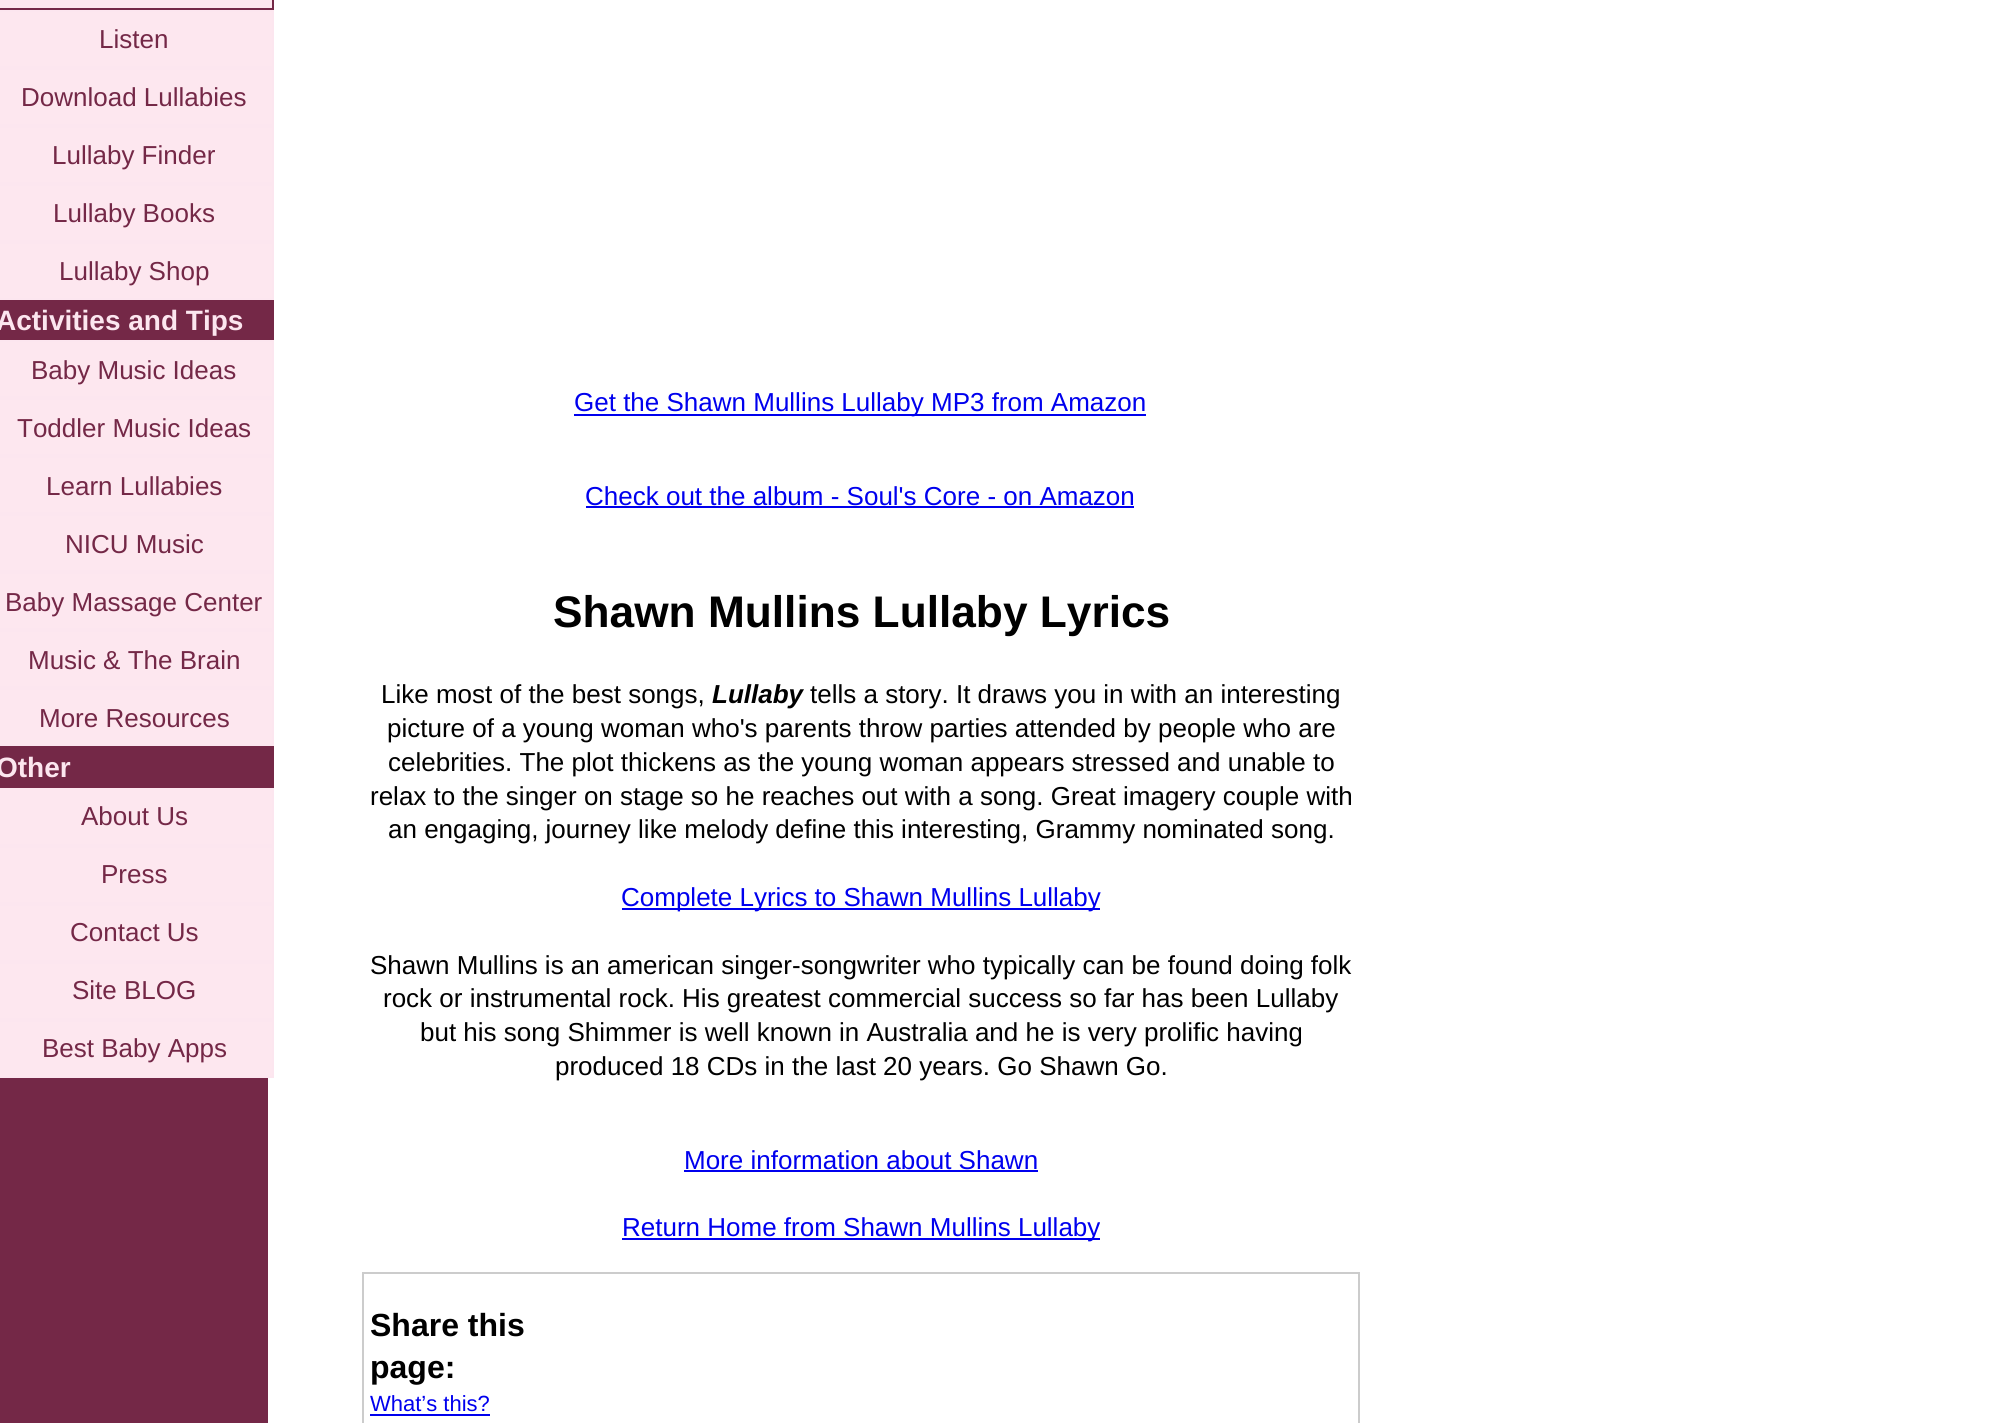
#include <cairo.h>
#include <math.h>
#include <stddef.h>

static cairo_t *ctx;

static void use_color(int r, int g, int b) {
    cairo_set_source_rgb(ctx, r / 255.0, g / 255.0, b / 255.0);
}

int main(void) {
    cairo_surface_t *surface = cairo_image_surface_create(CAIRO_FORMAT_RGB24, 2016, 1423);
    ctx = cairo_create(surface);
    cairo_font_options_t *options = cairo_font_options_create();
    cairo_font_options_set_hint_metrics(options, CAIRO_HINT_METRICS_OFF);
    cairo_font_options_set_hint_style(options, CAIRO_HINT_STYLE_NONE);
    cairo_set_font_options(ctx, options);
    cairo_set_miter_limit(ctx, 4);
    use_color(255, 255, 255);
    cairo_paint(ctx);
    use_color(116, 40, 71);
    cairo_rectangle(ctx, 0, 1078, 268, 345);
    cairo_fill(ctx);
    use_color(253, 231, 239);
    cairo_rectangle(ctx, -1, -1, 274, 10);
    cairo_fill_preserve(ctx);
    use_color(116, 40, 71);
    cairo_stroke(ctx);
    use_color(253, 231, 239);
    cairo_rectangle(ctx, -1, 11, 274, 56);
    cairo_fill_preserve(ctx);
    use_color(252, 230, 239);
    cairo_stroke(ctx);
    cairo_select_font_face(ctx, "Liberation Sans", CAIRO_FONT_SLANT_NORMAL, CAIRO_FONT_WEIGHT_NORMAL);
    cairo_set_font_size(ctx, 26);
    use_color(116, 40, 71);
    cairo_move_to(ctx, 99, 48);
    cairo_show_text(ctx, "Listen");
    use_color(253, 231, 239);
    cairo_rectangle(ctx, -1, 69, 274, 56);
    cairo_fill_preserve(ctx);
    use_color(252, 230, 239);
    cairo_stroke(ctx);
    use_color(116, 40, 71);
    cairo_move_to(ctx, 21, 106);
    cairo_show_text(ctx, "Download Lullabies");
    use_color(253, 231, 239);
    cairo_rectangle(ctx, -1, 127, 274, 56);
    cairo_fill_preserve(ctx);
    use_color(252, 230, 239);
    cairo_stroke(ctx);
    use_color(116, 40, 71);
    cairo_move_to(ctx, 52, 164);
    cairo_show_text(ctx, "Lullaby Finder");
    use_color(253, 231, 239);
    cairo_rectangle(ctx, -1, 185, 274, 56);
    cairo_fill_preserve(ctx);
    use_color(252, 230, 239);
    cairo_stroke(ctx);
    use_color(116, 40, 71);
    cairo_move_to(ctx, 53, 222);
    cairo_show_text(ctx, "Lullaby Books");
    use_color(253, 231, 239);
    cairo_rectangle(ctx, -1, 243, 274, 56);
    cairo_fill_preserve(ctx);
    use_color(252, 230, 239);
    cairo_stroke(ctx);
    use_color(116, 40, 71);
    cairo_move_to(ctx, 59, 280);
    cairo_show_text(ctx, "Lullaby Shop");
    cairo_rectangle(ctx, 0, 300, 274, 40);
    cairo_fill(ctx);
    cairo_select_font_face(ctx, "Liberation Sans", CAIRO_FONT_SLANT_NORMAL, CAIRO_FONT_WEIGHT_BOLD);
    cairo_set_font_size(ctx, 28);
    use_color(252, 230, 239);
    cairo_move_to(ctx, -4, 330);
    cairo_show_text(ctx, "Activities and Tips");
    use_color(253, 231, 239);
    cairo_rectangle(ctx, -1, 341, 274, 56);
    cairo_fill_preserve(ctx);
    use_color(252, 230, 239);
    cairo_stroke(ctx);
    cairo_select_font_face(ctx, "Liberation Sans", CAIRO_FONT_SLANT_NORMAL, CAIRO_FONT_WEIGHT_NORMAL);
    cairo_set_font_size(ctx, 26);
    use_color(116, 40, 71);
    cairo_move_to(ctx, 31, 379);
    cairo_show_text(ctx, "Baby Music Ideas");
    use_color(253, 231, 239);
    cairo_rectangle(ctx, -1, 399, 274, 56);
    cairo_fill_preserve(ctx);
    use_color(252, 230, 239);
    cairo_stroke(ctx);
    use_color(116, 40, 71);
    cairo_move_to(ctx, 17, 437);
    cairo_show_text(ctx, "Toddler Music Ideas");
    use_color(253, 231, 239);
    cairo_rectangle(ctx, -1, 457, 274, 56);
    cairo_fill_preserve(ctx);
    use_color(252, 230, 239);
    cairo_stroke(ctx);
    use_color(116, 40, 71);
    cairo_move_to(ctx, 46, 495);
    cairo_show_text(ctx, "Learn Lullabies");
    use_color(253, 231, 239);
    cairo_rectangle(ctx, -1, 515, 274, 56);
    cairo_fill_preserve(ctx);
    use_color(252, 230, 239);
    cairo_stroke(ctx);
    use_color(116, 40, 71);
    cairo_move_to(ctx, 65, 553);
    cairo_show_text(ctx, "NICU Music");
    use_color(253, 231, 239);
    cairo_rectangle(ctx, -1, 573, 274, 56);
    cairo_fill_preserve(ctx);
    use_color(252, 230, 239);
    cairo_stroke(ctx);
    use_color(116, 40, 71);
    cairo_move_to(ctx, 5, 611);
    cairo_show_text(ctx, "Baby Massage Center");
    use_color(253, 231, 239);
    cairo_rectangle(ctx, -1, 631, 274, 56);
    cairo_fill_preserve(ctx);
    use_color(252, 230, 239);
    cairo_stroke(ctx);
    use_color(116, 40, 71);
    cairo_move_to(ctx, 28, 669);
    cairo_show_text(ctx, "Music & The Brain");
    use_color(253, 231, 239);
    cairo_rectangle(ctx, -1, 689, 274, 56);
    cairo_fill_preserve(ctx);
    use_color(252, 230, 239);
    cairo_stroke(ctx);
    use_color(116, 40, 71);
    cairo_move_to(ctx, 39, 727);
    cairo_show_text(ctx, "More Resources");
    cairo_rectangle(ctx, 0, 746, 274, 42);
    cairo_fill(ctx);
    cairo_select_font_face(ctx, "Liberation Sans", CAIRO_FONT_SLANT_NORMAL, CAIRO_FONT_WEIGHT_BOLD);
    cairo_set_font_size(ctx, 28);
    use_color(252, 230, 239);
    cairo_move_to(ctx, -4, 777);
    cairo_show_text(ctx, "Other");
    use_color(253, 231, 239);
    cairo_rectangle(ctx, -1, 789, 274, 56);
    cairo_fill_preserve(ctx);
    use_color(252, 230, 239);
    cairo_stroke(ctx);
    cairo_select_font_face(ctx, "Liberation Sans", CAIRO_FONT_SLANT_NORMAL, CAIRO_FONT_WEIGHT_NORMAL);
    cairo_set_font_size(ctx, 26);
    use_color(116, 40, 71);
    cairo_move_to(ctx, 81, 825);
    cairo_show_text(ctx, "About Us");
    use_color(253, 231, 239);
    cairo_rectangle(ctx, -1, 847, 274, 56);
    cairo_fill_preserve(ctx);
    use_color(252, 230, 239);
    cairo_stroke(ctx);
    use_color(116, 40, 71);
    cairo_move_to(ctx, 101, 883);
    cairo_show_text(ctx, "Press");
    use_color(253, 231, 239);
    cairo_rectangle(ctx, -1, 905, 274, 56);
    cairo_fill_preserve(ctx);
    use_color(252, 230, 239);
    cairo_stroke(ctx);
    use_color(116, 40, 71);
    cairo_move_to(ctx, 70, 941);
    cairo_show_text(ctx, "Contact Us");
    use_color(253, 231, 239);
    cairo_rectangle(ctx, -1, 963, 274, 56);
    cairo_fill_preserve(ctx);
    use_color(252, 230, 239);
    cairo_stroke(ctx);
    use_color(116, 40, 71);
    cairo_move_to(ctx, 72, 999);
    cairo_show_text(ctx, "Site BLOG");
    use_color(253, 231, 239);
    cairo_rectangle(ctx, -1, 1021, 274, 56);
    cairo_fill_preserve(ctx);
    use_color(252, 230, 239);
    cairo_stroke(ctx);
    use_color(116, 40, 71);
    cairo_move_to(ctx, 42, 1057);
    cairo_show_text(ctx, "Best Baby Apps");
    use_color(0, 0, 238);
    cairo_rectangle(ctx, 574, 414, 572, 2);
    cairo_fill(ctx);
    cairo_move_to(ctx, 574, 411);
    cairo_show_text(ctx, "Get the Shawn Mullins Lullaby MP3 from Amazon");
    cairo_move_to(ctx, 585, 505);
    cairo_show_text(ctx, "Check out the album - Soul's Core - on Amazon");
    cairo_rectangle(ctx, 586, 506, 548, 2);
    cairo_fill(ctx);
    cairo_select_font_face(ctx, "Liberation Sans", CAIRO_FONT_SLANT_NORMAL, CAIRO_FONT_WEIGHT_BOLD);
    cairo_set_font_size(ctx, 44.25);
    use_color(0, 0, 0);
    cairo_move_to(ctx, 553, 627);
    cairo_show_text(ctx, "Shawn Mullins Lullaby Lyrics");
    cairo_select_font_face(ctx, "Liberation Sans", CAIRO_FONT_SLANT_NORMAL, CAIRO_FONT_WEIGHT_NORMAL);
    cairo_set_font_size(ctx, 26);
    cairo_move_to(ctx, 381, 703);
    cairo_show_text(ctx, "Like most of the best songs,");
    cairo_select_font_face(ctx, "Liberation Sans", CAIRO_FONT_SLANT_ITALIC, CAIRO_FONT_WEIGHT_BOLD);
    cairo_move_to(ctx, 712, 703);
    cairo_show_text(ctx, "Lullaby");
    cairo_select_font_face(ctx, "Liberation Sans", CAIRO_FONT_SLANT_NORMAL, CAIRO_FONT_WEIGHT_NORMAL);
    cairo_move_to(ctx, 810, 703);
    cairo_show_text(ctx, "tells a story. It draws you in with an interesting");
    cairo_move_to(ctx, 387, 737);
    cairo_show_text(ctx, "picture of a young woman who's parents throw parties attended by people who are");
    cairo_move_to(ctx, 388, 771);
    cairo_show_text(ctx, "celebrities. The plot thickens as the young woman appears stressed and unable to");
    cairo_move_to(ctx, 370, 805);
    cairo_show_text(ctx, "relax to the singer on stage so he reaches out with a song. Great imagery couple with");
    cairo_move_to(ctx, 388, 838);
    cairo_show_text(ctx, "an engaging, journey like melody define this interesting, Grammy nominated song.");
    use_color(0, 0, 238);
    cairo_rectangle(ctx, 622, 908, 478, 2);
    cairo_fill(ctx);
    cairo_move_to(ctx, 621, 906);
    cairo_show_text(ctx, "Complete Lyrics to Shawn Mullins Lullaby");
    use_color(0, 0, 0);
    cairo_move_to(ctx, 370, 974);
    cairo_show_text(ctx, "Shawn Mullins is an american singer-songwriter who typically can be found doing folk");
    cairo_move_to(ctx, 383, 1007);
    cairo_show_text(ctx, "rock or instrumental rock. His greatest commercial success so far has been Lullaby");
    cairo_move_to(ctx, 420, 1041);
    cairo_show_text(ctx, "but his song Shimmer is well known in Australia and he is very prolific having");
    cairo_move_to(ctx, 555, 1075);
    cairo_show_text(ctx, "produced 18 CDs in the last 20 years. Go Shawn Go.");
    use_color(0, 0, 238);
    cairo_move_to(ctx, 684, 1169);
    cairo_show_text(ctx, "More information about Shawn");
    cairo_rectangle(ctx, 684, 1170, 354, 2);
    cairo_fill(ctx);
    cairo_rectangle(ctx, 622, 1238, 478, 2);
    cairo_fill(ctx);
    cairo_move_to(ctx, 622, 1236);
    cairo_show_text(ctx, "Return Home from Shawn Mullins Lullaby");
    cairo_rectangle(ctx, 363, 1273, 996, 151);
    use_color(204, 204, 204);
    cairo_stroke(ctx);
    cairo_select_font_face(ctx, "Liberation Sans", CAIRO_FONT_SLANT_NORMAL, CAIRO_FONT_WEIGHT_BOLD);
    cairo_set_font_size(ctx, 32);
    use_color(0, 0, 0);
    cairo_move_to(ctx, 370, 1336);
    cairo_show_text(ctx, "Share this");
    cairo_move_to(ctx, 370, 1378);
    cairo_show_text(ctx, "page:");
    cairo_select_font_face(ctx, "Liberation Sans", CAIRO_FONT_SLANT_NORMAL, CAIRO_FONT_WEIGHT_NORMAL);
    cairo_set_font_size(ctx, 22);
    use_color(0, 0, 238);
    cairo_move_to(ctx, 370, 1411);
    cairo_show_text(ctx, "What’s this?");
    cairo_rectangle(ctx, 370, 1414, 120, 2);
    cairo_fill(ctx);
    cairo_surface_write_to_png(surface, "result.png");
    cairo_font_options_destroy(options);
    cairo_destroy(ctx);
    cairo_surface_destroy(surface);
    return 0;
}
